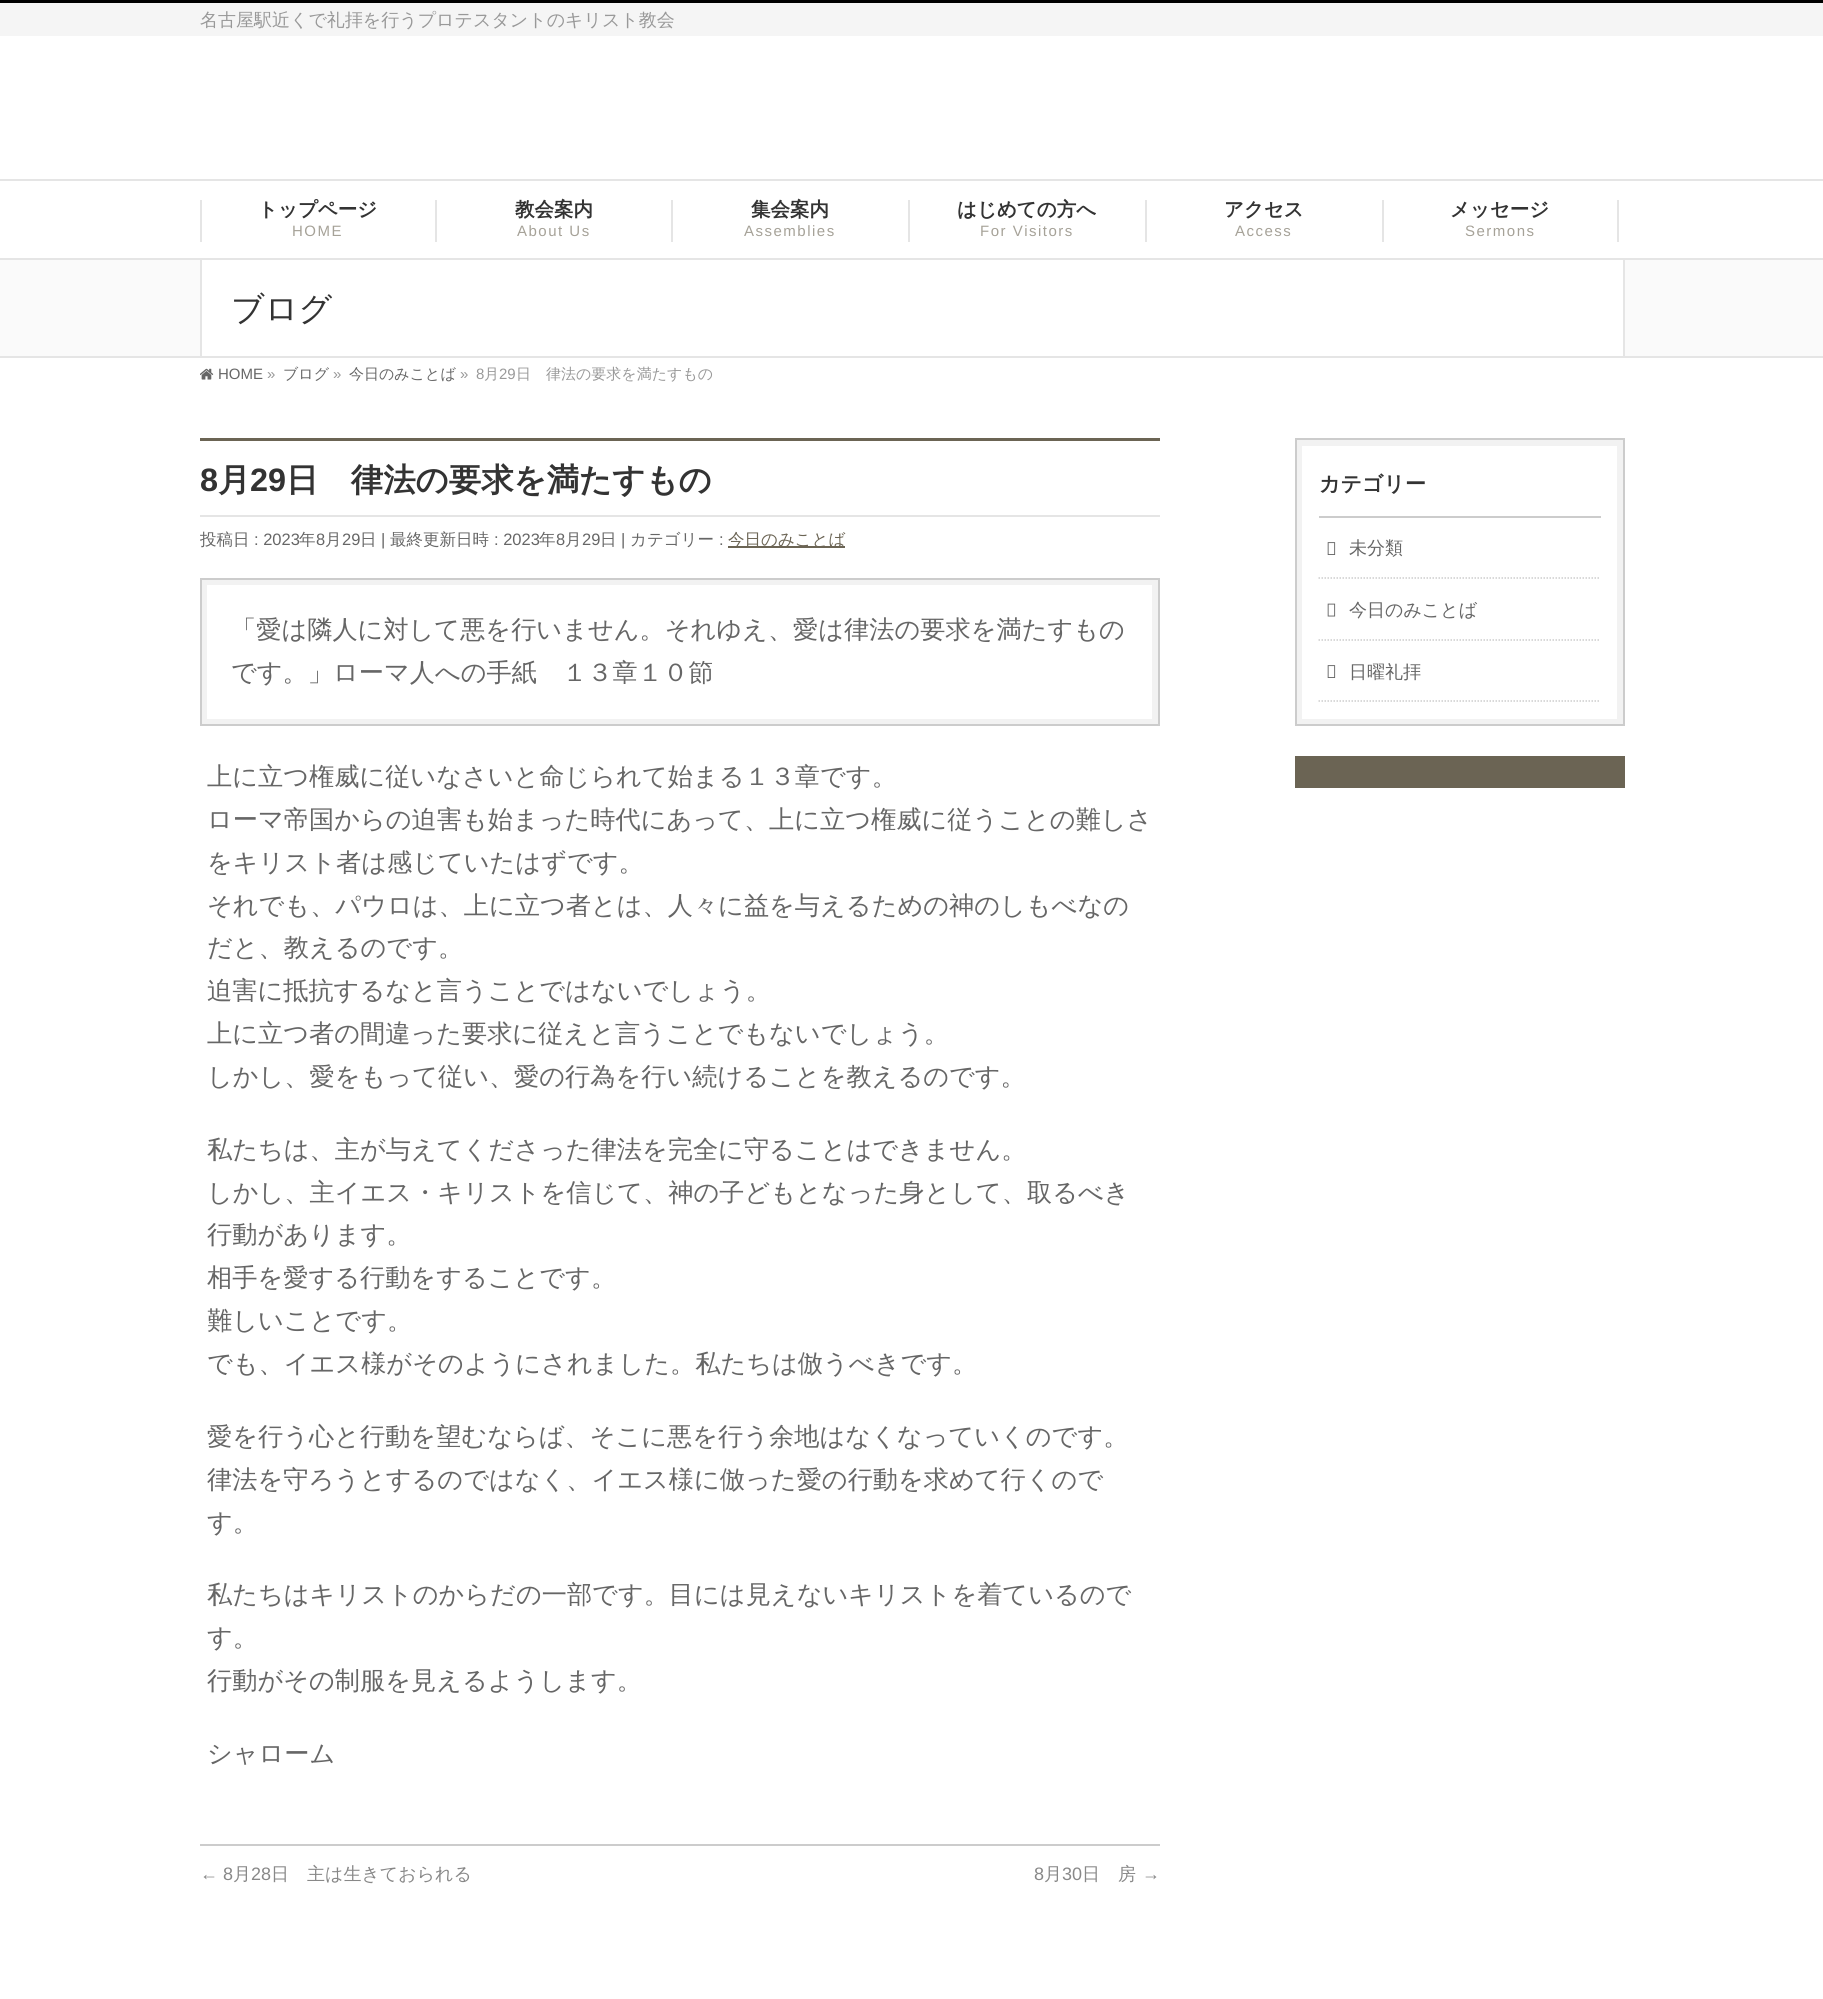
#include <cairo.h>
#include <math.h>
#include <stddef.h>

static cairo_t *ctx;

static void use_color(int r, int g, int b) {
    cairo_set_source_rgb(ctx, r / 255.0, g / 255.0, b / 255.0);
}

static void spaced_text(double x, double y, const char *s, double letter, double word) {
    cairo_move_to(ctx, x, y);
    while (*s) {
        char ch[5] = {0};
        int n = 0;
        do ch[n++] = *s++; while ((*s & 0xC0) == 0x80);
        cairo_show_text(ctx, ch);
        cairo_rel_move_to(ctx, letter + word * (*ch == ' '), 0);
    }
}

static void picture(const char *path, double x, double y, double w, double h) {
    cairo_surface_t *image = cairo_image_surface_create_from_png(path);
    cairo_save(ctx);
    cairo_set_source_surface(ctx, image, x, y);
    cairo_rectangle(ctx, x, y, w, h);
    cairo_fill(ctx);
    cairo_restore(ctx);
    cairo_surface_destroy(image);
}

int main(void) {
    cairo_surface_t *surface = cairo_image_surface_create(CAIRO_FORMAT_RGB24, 1823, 1999);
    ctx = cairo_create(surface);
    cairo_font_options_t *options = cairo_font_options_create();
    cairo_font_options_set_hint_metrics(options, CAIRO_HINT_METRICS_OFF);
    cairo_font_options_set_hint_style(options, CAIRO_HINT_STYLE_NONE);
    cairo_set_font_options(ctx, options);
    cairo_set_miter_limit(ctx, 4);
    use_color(255, 255, 255);
    cairo_paint(ctx);
    use_color(245, 245, 245);
    cairo_rectangle(ctx, 0, 3, 1823, 33);
    cairo_fill(ctx);
    use_color(0, 0, 0);
    cairo_rectangle(ctx, 0, 0, 1823, 3);
    cairo_fill(ctx);
    cairo_select_font_face(ctx, "WenQuanYi Zen Hei Medium", CAIRO_FONT_SLANT_NORMAL, CAIRO_FONT_WEIGHT_NORMAL);
    cairo_set_font_size(ctx, 18);
    use_color(153, 153, 153);
    cairo_move_to(ctx, 200, 26);
    cairo_show_text(ctx, "名古屋駅近くで礼拝を行うプロテスタントのキリスト教会");
    use_color(229, 229, 229);
    cairo_rectangle(ctx, 0, 179, 1823, 2);
    cairo_fill(ctx);
    cairo_rectangle(ctx, 0, 258, 1823, 2);
    cairo_fill(ctx);
    cairo_rectangle(ctx, 435, 200, 2, 42);
    cairo_fill(ctx);
    cairo_rectangle(ctx, 200, 200, 2, 42);
    cairo_fill(ctx);
    cairo_select_font_face(ctx, "WenQuanYi Zen Hei", CAIRO_FONT_SLANT_NORMAL, CAIRO_FONT_WEIGHT_BOLD);
    cairo_set_font_size(ctx, 19.5);
    use_color(51, 51, 51);
    cairo_move_to(ctx, 258, 216);
    cairo_show_text(ctx, "トップページ");
    cairo_select_font_face(ctx, "Liberation Sans", CAIRO_FONT_SLANT_NORMAL, CAIRO_FONT_WEIGHT_NORMAL);
    cairo_set_font_size(ctx, 15);
    use_color(166, 162, 152);
    spaced_text(292, 236, "HOME", 1.5, 0);
    use_color(229, 229, 229);
    cairo_rectangle(ctx, 671, 200, 2, 42);
    cairo_fill(ctx);
    cairo_select_font_face(ctx, "WenQuanYi Zen Hei", CAIRO_FONT_SLANT_NORMAL, CAIRO_FONT_WEIGHT_BOLD);
    cairo_set_font_size(ctx, 19.5);
    use_color(51, 51, 51);
    cairo_move_to(ctx, 515, 216);
    cairo_show_text(ctx, "教会案内");
    cairo_select_font_face(ctx, "Liberation Sans", CAIRO_FONT_SLANT_NORMAL, CAIRO_FONT_WEIGHT_NORMAL);
    cairo_set_font_size(ctx, 15);
    use_color(166, 162, 152);
    spaced_text(517, 236, "About Us", 1.5, 0);
    use_color(229, 229, 229);
    cairo_rectangle(ctx, 908, 200, 2, 42);
    cairo_fill(ctx);
    cairo_select_font_face(ctx, "WenQuanYi Zen Hei", CAIRO_FONT_SLANT_NORMAL, CAIRO_FONT_WEIGHT_BOLD);
    cairo_set_font_size(ctx, 19.5);
    use_color(51, 51, 51);
    cairo_move_to(ctx, 751, 216);
    cairo_show_text(ctx, "集会案内");
    cairo_select_font_face(ctx, "Liberation Sans", CAIRO_FONT_SLANT_NORMAL, CAIRO_FONT_WEIGHT_NORMAL);
    cairo_set_font_size(ctx, 15);
    use_color(166, 162, 152);
    spaced_text(744, 236, "Assemblies", 1.5, 0);
    use_color(229, 229, 229);
    cairo_rectangle(ctx, 1145, 200, 2, 42);
    cairo_fill(ctx);
    cairo_select_font_face(ctx, "WenQuanYi Zen Hei", CAIRO_FONT_SLANT_NORMAL, CAIRO_FONT_WEIGHT_BOLD);
    cairo_set_font_size(ctx, 19.5);
    use_color(51, 51, 51);
    cairo_move_to(ctx, 957, 216);
    cairo_show_text(ctx, "はじめての方へ");
    cairo_select_font_face(ctx, "Liberation Sans", CAIRO_FONT_SLANT_NORMAL, CAIRO_FONT_WEIGHT_NORMAL);
    cairo_set_font_size(ctx, 15);
    use_color(166, 162, 152);
    spaced_text(980, 236, "For Visitors", 1.5, 0);
    use_color(229, 229, 229);
    cairo_rectangle(ctx, 1382, 200, 2, 42);
    cairo_fill(ctx);
    cairo_select_font_face(ctx, "WenQuanYi Zen Hei", CAIRO_FONT_SLANT_NORMAL, CAIRO_FONT_WEIGHT_BOLD);
    cairo_set_font_size(ctx, 19.5);
    use_color(51, 51, 51);
    cairo_move_to(ctx, 1224, 216);
    cairo_show_text(ctx, "アクセス");
    cairo_select_font_face(ctx, "Liberation Sans", CAIRO_FONT_SLANT_NORMAL, CAIRO_FONT_WEIGHT_NORMAL);
    cairo_set_font_size(ctx, 15);
    use_color(166, 162, 152);
    spaced_text(1235, 236, "Access", 1.5, 0);
    use_color(229, 229, 229);
    cairo_rectangle(ctx, 1617, 200, 2, 42);
    cairo_fill(ctx);
    cairo_select_font_face(ctx, "WenQuanYi Zen Hei", CAIRO_FONT_SLANT_NORMAL, CAIRO_FONT_WEIGHT_BOLD);
    cairo_set_font_size(ctx, 19.5);
    use_color(51, 51, 51);
    cairo_move_to(ctx, 1450, 216);
    cairo_show_text(ctx, "メッセージ");
    cairo_select_font_face(ctx, "Liberation Sans", CAIRO_FONT_SLANT_NORMAL, CAIRO_FONT_WEIGHT_NORMAL);
    cairo_set_font_size(ctx, 15);
    use_color(166, 162, 152);
    spaced_text(1465, 236, "Sermons", 1.5, 0);
    use_color(250, 250, 250);
    cairo_rectangle(ctx, 0, 260, 1823, 96);
    cairo_fill(ctx);
    use_color(229, 229, 229);
    cairo_rectangle(ctx, 0, 356, 1823, 2);
    cairo_fill(ctx);
    use_color(255, 255, 255);
    cairo_rectangle(ctx, 202, 260, 1421, 96);
    cairo_fill(ctx);
    use_color(229, 229, 229);
    cairo_rectangle(ctx, 1623, 260, 2, 96);
    cairo_fill(ctx);
    cairo_rectangle(ctx, 200, 260, 2, 96);
    cairo_fill(ctx);
    cairo_select_font_face(ctx, "WenQuanYi Zen Hei Medium", CAIRO_FONT_SLANT_NORMAL, CAIRO_FONT_WEIGHT_NORMAL);
    cairo_set_font_size(ctx, 33);
    use_color(51, 51, 51);
    cairo_move_to(ctx, 231, 320);
    cairo_show_text(ctx, "ブログ");
    picture("img1.png", 200, 368, 14, 12);
    cairo_select_font_face(ctx, "Liberation Sans", CAIRO_FONT_SLANT_NORMAL, CAIRO_FONT_WEIGHT_NORMAL);
    cairo_set_font_size(ctx, 15);
    use_color(102, 102, 102);
    cairo_move_to(ctx, 218, 379);
    cairo_show_text(ctx, "HOME");
    use_color(153, 153, 153);
    cairo_move_to(ctx, 267, 379);
    cairo_show_text(ctx, "»");
    cairo_select_font_face(ctx, "WenQuanYi Zen Hei Medium", CAIRO_FONT_SLANT_NORMAL, CAIRO_FONT_WEIGHT_NORMAL);
    use_color(102, 102, 102);
    cairo_move_to(ctx, 283, 379);
    cairo_show_text(ctx, "ブログ");
    cairo_select_font_face(ctx, "Liberation Sans", CAIRO_FONT_SLANT_NORMAL, CAIRO_FONT_WEIGHT_NORMAL);
    use_color(153, 153, 153);
    cairo_move_to(ctx, 333, 379);
    cairo_show_text(ctx, "»");
    cairo_select_font_face(ctx, "WenQuanYi Zen Hei Medium", CAIRO_FONT_SLANT_NORMAL, CAIRO_FONT_WEIGHT_NORMAL);
    use_color(102, 102, 102);
    cairo_move_to(ctx, 349, 379);
    cairo_show_text(ctx, "今日のみことば");
    cairo_select_font_face(ctx, "Liberation Sans", CAIRO_FONT_SLANT_NORMAL, CAIRO_FONT_WEIGHT_NORMAL);
    use_color(153, 153, 153);
    cairo_move_to(ctx, 460, 379);
    cairo_show_text(ctx, "»");
    cairo_move_to(ctx, 476, 379);
    cairo_show_text(ctx, "8");
    cairo_select_font_face(ctx, "WenQuanYi Zen Hei Medium", CAIRO_FONT_SLANT_NORMAL, CAIRO_FONT_WEIGHT_NORMAL);
    cairo_move_to(ctx, 484, 379);
    cairo_show_text(ctx, "月");
    cairo_select_font_face(ctx, "Liberation Sans", CAIRO_FONT_SLANT_NORMAL, CAIRO_FONT_WEIGHT_NORMAL);
    cairo_move_to(ctx, 499, 379);
    cairo_show_text(ctx, "29");
    cairo_select_font_face(ctx, "WenQuanYi Zen Hei Medium", CAIRO_FONT_SLANT_NORMAL, CAIRO_FONT_WEIGHT_NORMAL);
    cairo_move_to(ctx, 516, 379);
    cairo_show_text(ctx, "日　律法の要求を満たすもの");
    use_color(107, 100, 84);
    cairo_rectangle(ctx, 200, 438, 960, 3);
    cairo_fill(ctx);
    use_color(229, 229, 229);
    cairo_rectangle(ctx, 200, 515, 960, 2);
    cairo_fill(ctx);
    cairo_select_font_face(ctx, "Liberation Sans", CAIRO_FONT_SLANT_NORMAL, CAIRO_FONT_WEIGHT_BOLD);
    cairo_set_font_size(ctx, 32.4);
    use_color(51, 51, 51);
    cairo_move_to(ctx, 200, 491);
    cairo_show_text(ctx, "8");
    cairo_select_font_face(ctx, "WenQuanYi Zen Hei", CAIRO_FONT_SLANT_NORMAL, CAIRO_FONT_WEIGHT_BOLD);
    cairo_move_to(ctx, 218, 491);
    cairo_show_text(ctx, "月");
    cairo_select_font_face(ctx, "Liberation Sans", CAIRO_FONT_SLANT_NORMAL, CAIRO_FONT_WEIGHT_BOLD);
    cairo_move_to(ctx, 250, 491);
    cairo_show_text(ctx, "29");
    cairo_select_font_face(ctx, "WenQuanYi Zen Hei", CAIRO_FONT_SLANT_NORMAL, CAIRO_FONT_WEIGHT_BOLD);
    cairo_move_to(ctx, 286, 491);
    cairo_show_text(ctx, "日　律法の要求を満たすもの");
    cairo_select_font_face(ctx, "WenQuanYi Zen Hei Medium", CAIRO_FONT_SLANT_NORMAL, CAIRO_FONT_WEIGHT_NORMAL);
    cairo_set_font_size(ctx, 16.5);
    use_color(102, 102, 102);
    cairo_move_to(ctx, 200, 545);
    cairo_show_text(ctx, "投稿日");
    cairo_select_font_face(ctx, "Liberation Sans", CAIRO_FONT_SLANT_NORMAL, CAIRO_FONT_WEIGHT_NORMAL);
    cairo_move_to(ctx, 254, 545);
    cairo_show_text(ctx, ": 2023");
    cairo_select_font_face(ctx, "WenQuanYi Zen Hei Medium", CAIRO_FONT_SLANT_NORMAL, CAIRO_FONT_WEIGHT_NORMAL);
    cairo_move_to(ctx, 299, 545);
    cairo_show_text(ctx, "年");
    cairo_select_font_face(ctx, "Liberation Sans", CAIRO_FONT_SLANT_NORMAL, CAIRO_FONT_WEIGHT_NORMAL);
    cairo_move_to(ctx, 316, 545);
    cairo_show_text(ctx, "8");
    cairo_select_font_face(ctx, "WenQuanYi Zen Hei Medium", CAIRO_FONT_SLANT_NORMAL, CAIRO_FONT_WEIGHT_NORMAL);
    cairo_move_to(ctx, 325, 545);
    cairo_show_text(ctx, "月");
    cairo_select_font_face(ctx, "Liberation Sans", CAIRO_FONT_SLANT_NORMAL, CAIRO_FONT_WEIGHT_NORMAL);
    cairo_move_to(ctx, 342, 545);
    cairo_show_text(ctx, "29");
    cairo_select_font_face(ctx, "WenQuanYi Zen Hei Medium", CAIRO_FONT_SLANT_NORMAL, CAIRO_FONT_WEIGHT_NORMAL);
    cairo_move_to(ctx, 360, 545);
    cairo_show_text(ctx, "日");
    cairo_select_font_face(ctx, "Liberation Sans", CAIRO_FONT_SLANT_NORMAL, CAIRO_FONT_WEIGHT_NORMAL);
    cairo_move_to(ctx, 381, 545);
    cairo_show_text(ctx, "|");
    cairo_select_font_face(ctx, "WenQuanYi Zen Hei Medium", CAIRO_FONT_SLANT_NORMAL, CAIRO_FONT_WEIGHT_NORMAL);
    cairo_move_to(ctx, 390, 545);
    cairo_show_text(ctx, "最終更新日時");
    cairo_select_font_face(ctx, "Liberation Sans", CAIRO_FONT_SLANT_NORMAL, CAIRO_FONT_WEIGHT_NORMAL);
    cairo_move_to(ctx, 494, 545);
    cairo_show_text(ctx, ": 2023");
    cairo_select_font_face(ctx, "WenQuanYi Zen Hei Medium", CAIRO_FONT_SLANT_NORMAL, CAIRO_FONT_WEIGHT_NORMAL);
    cairo_move_to(ctx, 539, 545);
    cairo_show_text(ctx, "年");
    cairo_select_font_face(ctx, "Liberation Sans", CAIRO_FONT_SLANT_NORMAL, CAIRO_FONT_WEIGHT_NORMAL);
    cairo_move_to(ctx, 556, 545);
    cairo_show_text(ctx, "8");
    cairo_select_font_face(ctx, "WenQuanYi Zen Hei Medium", CAIRO_FONT_SLANT_NORMAL, CAIRO_FONT_WEIGHT_NORMAL);
    cairo_move_to(ctx, 565, 545);
    cairo_show_text(ctx, "月");
    cairo_select_font_face(ctx, "Liberation Sans", CAIRO_FONT_SLANT_NORMAL, CAIRO_FONT_WEIGHT_NORMAL);
    cairo_move_to(ctx, 582, 545);
    cairo_show_text(ctx, "29");
    cairo_select_font_face(ctx, "WenQuanYi Zen Hei Medium", CAIRO_FONT_SLANT_NORMAL, CAIRO_FONT_WEIGHT_NORMAL);
    cairo_move_to(ctx, 600, 545);
    cairo_show_text(ctx, "日");
    cairo_select_font_face(ctx, "Liberation Sans", CAIRO_FONT_SLANT_NORMAL, CAIRO_FONT_WEIGHT_NORMAL);
    cairo_move_to(ctx, 621, 545);
    cairo_show_text(ctx, "|");
    cairo_select_font_face(ctx, "WenQuanYi Zen Hei Medium", CAIRO_FONT_SLANT_NORMAL, CAIRO_FONT_WEIGHT_NORMAL);
    cairo_move_to(ctx, 630, 545);
    cairo_show_text(ctx, "カテゴリー");
    cairo_select_font_face(ctx, "Liberation Sans", CAIRO_FONT_SLANT_NORMAL, CAIRO_FONT_WEIGHT_NORMAL);
    cairo_move_to(ctx, 719, 545);
    cairo_show_text(ctx, ":");
    use_color(107, 100, 84);
    cairo_rectangle(ctx, 728, 546, 117, 2);
    cairo_fill(ctx);
    cairo_select_font_face(ctx, "WenQuanYi Zen Hei Medium", CAIRO_FONT_SLANT_NORMAL, CAIRO_FONT_WEIGHT_NORMAL);
    cairo_move_to(ctx, 728, 545);
    cairo_show_text(ctx, "今日のみことば");
    cairo_rectangle(ctx, 204, 582, 951, 140);
    use_color(242, 242, 242);
    cairo_set_line_width(ctx, 6);
    cairo_stroke(ctx);
    cairo_rectangle(ctx, 201, 579, 958, 146);
    use_color(204, 204, 204);
    cairo_set_line_width(ctx, 2);
    cairo_stroke(ctx);
    cairo_set_font_size(ctx, 25.2);
    use_color(102, 102, 102);
    cairo_move_to(ctx, 231, 638);
    cairo_show_text(ctx, "「愛は隣人に対して悪を行いません。それゆえ、愛は律法の要求を満たすもの");
    cairo_move_to(ctx, 231, 681);
    cairo_show_text(ctx, "です。」ローマ人への手紙　１３章１０節");
    cairo_move_to(ctx, 207, 785);
    cairo_show_text(ctx, "上に立つ権威に従いなさいと命じられて始まる１３章です。");
    cairo_move_to(ctx, 207, 828);
    cairo_show_text(ctx, "ローマ帝国からの迫害も始まった時代にあって、上に立つ権威に従うことの難しさ");
    cairo_move_to(ctx, 207, 871);
    cairo_show_text(ctx, "をキリスト者は感じていたはずです。");
    cairo_move_to(ctx, 207, 914);
    cairo_show_text(ctx, "それでも、パウロは、上に立つ者とは、人々に益を与えるための神のしもべなの");
    cairo_move_to(ctx, 207, 956);
    cairo_show_text(ctx, "だと、教えるのです。");
    cairo_move_to(ctx, 207, 999);
    cairo_show_text(ctx, "迫害に抵抗するなと言うことではないでしょう。");
    cairo_move_to(ctx, 207, 1042);
    cairo_show_text(ctx, "上に立つ者の間違った要求に従えと言うことでもないでしょう。");
    cairo_move_to(ctx, 207, 1085);
    cairo_show_text(ctx, "しかし、愛をもって従い、愛の行為を行い続けることを教えるのです。");
    cairo_move_to(ctx, 207, 1158);
    cairo_show_text(ctx, "私たちは、主が与えてくださった律法を完全に守ることはできません。");
    cairo_move_to(ctx, 207, 1201);
    cairo_show_text(ctx, "しかし、主イエス・キリストを信じて、神の子どもとなった身として、取るべき");
    cairo_move_to(ctx, 207, 1243);
    cairo_show_text(ctx, "行動があります。");
    cairo_move_to(ctx, 207, 1286);
    cairo_show_text(ctx, "相手を愛する行動をすることです。");
    cairo_move_to(ctx, 207, 1329);
    cairo_show_text(ctx, "難しいことです。");
    cairo_move_to(ctx, 207, 1372);
    cairo_show_text(ctx, "でも、イエス様がそのようにされました。私たちは倣うべきです。");
    cairo_move_to(ctx, 207, 1445);
    cairo_show_text(ctx, "愛を行う心と行動を望むならば、そこに悪を行う余地はなくなっていくのです。");
    cairo_move_to(ctx, 207, 1488);
    cairo_show_text(ctx, "律法を守ろうとするのではなく、イエス様に倣った愛の行動を求めて行くので");
    cairo_move_to(ctx, 207, 1531);
    cairo_show_text(ctx, "す。");
    cairo_move_to(ctx, 207, 1603);
    cairo_show_text(ctx, "私たちはキリストのからだの一部です。目には見えないキリストを着ているので");
    cairo_move_to(ctx, 207, 1646);
    cairo_show_text(ctx, "す。");
    cairo_move_to(ctx, 207, 1689);
    cairo_show_text(ctx, "行動がその制服を見えるようします。");
    cairo_move_to(ctx, 207, 1762);
    cairo_show_text(ctx, "シャローム");
    use_color(204, 204, 204);
    cairo_rectangle(ctx, 200, 1844, 960, 2);
    cairo_fill(ctx);
    cairo_select_font_face(ctx, "Liberation Sans", CAIRO_FONT_SLANT_NORMAL, CAIRO_FONT_WEIGHT_NORMAL);
    cairo_set_font_size(ctx, 18);
    use_color(136, 136, 136);
    cairo_move_to(ctx, 200, 1880);
    cairo_show_text(ctx, "← 8");
    cairo_select_font_face(ctx, "WenQuanYi Zen Hei Medium", CAIRO_FONT_SLANT_NORMAL, CAIRO_FONT_WEIGHT_NORMAL);
    cairo_move_to(ctx, 233, 1880);
    cairo_show_text(ctx, "月");
    cairo_select_font_face(ctx, "Liberation Sans", CAIRO_FONT_SLANT_NORMAL, CAIRO_FONT_WEIGHT_NORMAL);
    cairo_move_to(ctx, 251, 1880);
    cairo_show_text(ctx, "28");
    cairo_select_font_face(ctx, "WenQuanYi Zen Hei Medium", CAIRO_FONT_SLANT_NORMAL, CAIRO_FONT_WEIGHT_NORMAL);
    cairo_move_to(ctx, 271, 1880);
    cairo_show_text(ctx, "日　主は生きておられる");
    cairo_select_font_face(ctx, "Liberation Sans", CAIRO_FONT_SLANT_NORMAL, CAIRO_FONT_WEIGHT_NORMAL);
    cairo_move_to(ctx, 1034, 1880);
    cairo_show_text(ctx, "8");
    cairo_select_font_face(ctx, "WenQuanYi Zen Hei Medium", CAIRO_FONT_SLANT_NORMAL, CAIRO_FONT_WEIGHT_NORMAL);
    cairo_move_to(ctx, 1044, 1880);
    cairo_show_text(ctx, "月");
    cairo_select_font_face(ctx, "Liberation Sans", CAIRO_FONT_SLANT_NORMAL, CAIRO_FONT_WEIGHT_NORMAL);
    cairo_move_to(ctx, 1062, 1880);
    cairo_show_text(ctx, "30");
    cairo_select_font_face(ctx, "WenQuanYi Zen Hei Medium", CAIRO_FONT_SLANT_NORMAL, CAIRO_FONT_WEIGHT_NORMAL);
    cairo_move_to(ctx, 1082, 1880);
    cairo_show_text(ctx, "日　房");
    cairo_select_font_face(ctx, "Liberation Sans", CAIRO_FONT_SLANT_NORMAL, CAIRO_FONT_WEIGHT_NORMAL);
    cairo_move_to(ctx, 1142, 1880);
    cairo_show_text(ctx, "→");
    cairo_rectangle(ctx, 1299, 443, 321, 279);
    use_color(242, 242, 242);
    cairo_set_line_width(ctx, 6);
    cairo_stroke(ctx);
    cairo_rectangle(ctx, 1296, 439, 328, 286);
    use_color(204, 204, 204);
    cairo_set_line_width(ctx, 2);
    cairo_stroke(ctx);
    cairo_rectangle(ctx, 1319, 516, 282, 2);
    cairo_fill(ctx);
    cairo_select_font_face(ctx, "WenQuanYi Zen Hei", CAIRO_FONT_SLANT_NORMAL, CAIRO_FONT_WEIGHT_BOLD);
    cairo_set_font_size(ctx, 21);
    use_color(51, 51, 51);
    cairo_move_to(ctx, 1319, 491);
    cairo_show_text(ctx, "カテゴリー");
    cairo_new_path(ctx);
    cairo_move_to(ctx, 1318.5, 578);
    cairo_line_to(ctx, 1600.5, 578);
    use_color(204, 204, 204);
    cairo_set_line_width(ctx, 1.5);
    cairo_set_dash(ctx, (double[]){1.5, 1.5}, 2, 0);
    cairo_stroke(ctx);
    picture("img2.png", 1327, 542, 9, 13);
    cairo_select_font_face(ctx, "WenQuanYi Zen Hei Medium", CAIRO_FONT_SLANT_NORMAL, CAIRO_FONT_WEIGHT_NORMAL);
    cairo_set_font_size(ctx, 18);
    use_color(102, 102, 102);
    cairo_move_to(ctx, 1349, 554);
    cairo_show_text(ctx, "未分類");
    cairo_new_path(ctx);
    cairo_move_to(ctx, 1318.5, 640);
    cairo_line_to(ctx, 1600.5, 640);
    use_color(204, 204, 204);
    cairo_stroke(ctx);
    picture("img3.png", 1327, 603, 9, 14);
    use_color(102, 102, 102);
    cairo_move_to(ctx, 1349, 616);
    cairo_show_text(ctx, "今日のみことば");
    cairo_new_path(ctx);
    cairo_move_to(ctx, 1318.5, 701);
    cairo_line_to(ctx, 1600.5, 701);
    use_color(204, 204, 204);
    cairo_stroke(ctx);
    picture("img2.png", 1327, 665, 9, 13);
    use_color(102, 102, 102);
    cairo_move_to(ctx, 1349, 678);
    cairo_show_text(ctx, "日曜礼拝");
    use_color(107, 100, 84);
    cairo_rectangle(ctx, 1295, 756, 330, 32);
    cairo_fill(ctx);
    cairo_surface_write_to_png(surface, "result.png");
    cairo_font_options_destroy(options);
    cairo_destroy(ctx);
    cairo_surface_destroy(surface);
    return 0;
}
